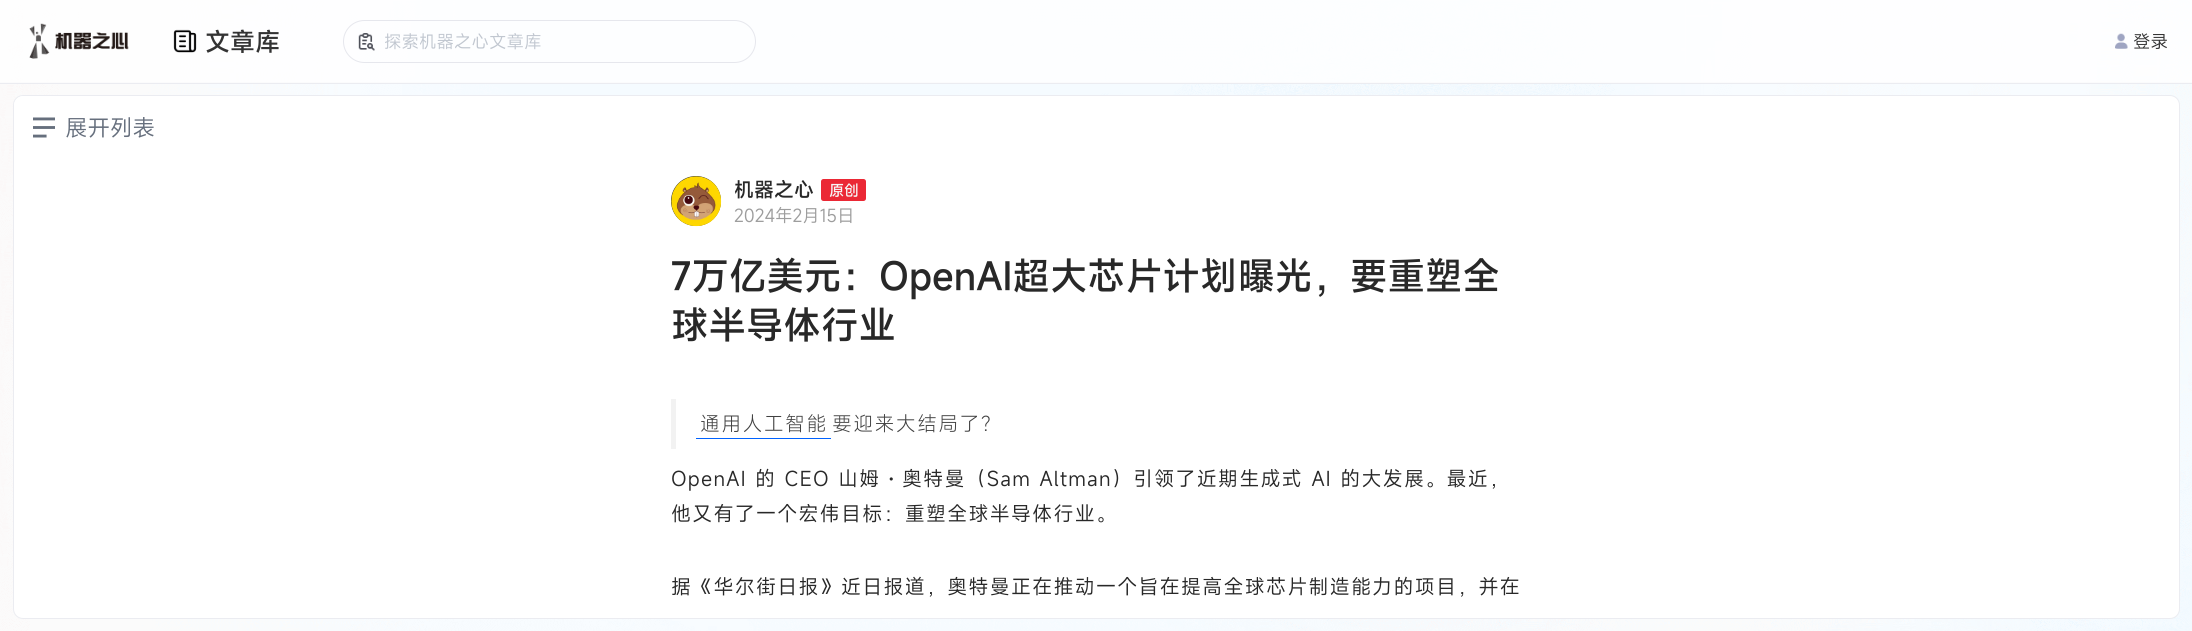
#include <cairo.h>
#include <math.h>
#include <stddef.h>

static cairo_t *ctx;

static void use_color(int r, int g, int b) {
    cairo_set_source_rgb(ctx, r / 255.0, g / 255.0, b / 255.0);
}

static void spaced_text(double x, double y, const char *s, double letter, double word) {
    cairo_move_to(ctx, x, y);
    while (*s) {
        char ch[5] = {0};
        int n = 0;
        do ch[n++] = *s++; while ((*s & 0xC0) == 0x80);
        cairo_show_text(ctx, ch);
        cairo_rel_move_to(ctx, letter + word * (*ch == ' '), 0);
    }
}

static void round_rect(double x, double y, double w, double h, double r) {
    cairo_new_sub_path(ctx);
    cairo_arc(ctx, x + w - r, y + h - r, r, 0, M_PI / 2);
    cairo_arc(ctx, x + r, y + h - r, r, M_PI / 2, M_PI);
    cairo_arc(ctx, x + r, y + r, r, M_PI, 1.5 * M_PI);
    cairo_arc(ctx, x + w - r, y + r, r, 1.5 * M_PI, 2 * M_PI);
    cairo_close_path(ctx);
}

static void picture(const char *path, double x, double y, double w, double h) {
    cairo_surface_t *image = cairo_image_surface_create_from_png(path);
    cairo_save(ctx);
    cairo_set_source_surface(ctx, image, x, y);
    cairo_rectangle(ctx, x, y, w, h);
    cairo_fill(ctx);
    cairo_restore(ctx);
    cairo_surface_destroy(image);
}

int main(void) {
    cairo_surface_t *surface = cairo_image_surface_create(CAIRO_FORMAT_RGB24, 2192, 631);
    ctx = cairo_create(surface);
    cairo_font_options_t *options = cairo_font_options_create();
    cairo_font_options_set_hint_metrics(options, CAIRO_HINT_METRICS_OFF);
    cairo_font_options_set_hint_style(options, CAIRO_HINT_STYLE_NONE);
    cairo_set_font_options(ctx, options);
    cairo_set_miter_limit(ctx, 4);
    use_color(255, 255, 255);
    cairo_paint(ctx);
    picture("img1.png", 0, 0, 2192, 631);
    use_color(235, 236, 241);
    cairo_new_path(ctx);
    cairo_move_to(ctx, 0, 82);
    cairo_line_to(ctx, 0, 84);
    cairo_line_to(ctx, 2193, 84);
    cairo_line_to(ctx, 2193, 1);
    cairo_line_to(ctx, 2192, 1);
    cairo_line_to(ctx, 2192, 82);
    cairo_close_path(ctx);
    cairo_fill(ctx);
    cairo_set_source_rgba(ctx, 1, 1, 1, 0.8);
    cairo_rectangle(ctx, 0, 0, 2192, 83);
    cairo_fill(ctx);
    picture("img2.png", 29, 23, 100, 36);
    picture("img3.png", 173, 29, 24, 24);
    cairo_select_font_face(ctx, "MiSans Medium", CAIRO_FONT_SLANT_NORMAL, CAIRO_FONT_WEIGHT_NORMAL);
    cairo_set_font_size(ctx, 25);
    use_color(51, 51, 51);
    cairo_move_to(ctx, 205, 51);
    cairo_show_text(ctx, "文章库");
    round_rect(343.5, 20.5, 412, 42, 21);
    use_color(230, 231, 237);
    cairo_set_line_width(ctx, 1);
    cairo_stroke(ctx);
    picture("img4.png", 358, 33, 17, 18);
    cairo_select_font_face(ctx, "MiSans", CAIRO_FONT_SLANT_NORMAL, CAIRO_FONT_WEIGHT_NORMAL);
    cairo_set_font_size(ctx, 17.5);
    use_color(193, 199, 208);
    cairo_move_to(ctx, 384, 48);
    cairo_show_text(ctx, "探索机器之心文章库");
    picture("img5.png", 2115, 33, 13, 16);
    use_color(51, 51, 51);
    cairo_move_to(ctx, 2133, 48);
    cairo_show_text(ctx, "登录");
    use_color(255, 255, 255);
    round_rect(13.5, 95.5, 2166, 523, 9.5);
    cairo_fill_preserve(ctx);
    use_color(235, 236, 241);
    cairo_stroke(ctx);
    use_color(255, 255, 255);
    cairo_new_path(ctx);
    cairo_move_to(ctx, 24, 96);
    cairo_line_to(ctx, 176, 96);
    cairo_line_to(ctx, 176, 163);
    cairo_line_to(ctx, 24, 163);
    cairo_curve_to(ctx, 18.5, 163, 14, 158.5, 14, 153);
    cairo_line_to(ctx, 14, 106);
    cairo_curve_to(ctx, 14, 100.5, 18.5, 96, 24, 96);
    cairo_close_path(ctx);
    cairo_fill(ctx);
    picture("img6.png", 33, 117, 22, 21);
    cairo_set_font_size(ctx, 22.5);
    use_color(102, 111, 125);
    cairo_move_to(ctx, 65, 136);
    cairo_show_text(ctx, "展开列表");
    use_color(51, 51, 51);
    cairo_new_path(ctx);
    cairo_arc(ctx, 696, 201, 25, 0, 2 * M_PI);
    cairo_fill(ctx);
    picture("img7.png", 671, 176, 51, 51);
    cairo_select_font_face(ctx, "MiSans Medium", CAIRO_FONT_SLANT_NORMAL, CAIRO_FONT_WEIGHT_NORMAL);
    cairo_set_font_size(ctx, 20);
    use_color(40, 40, 40);
    cairo_move_to(ctx, 734, 197);
    cairo_show_text(ctx, "机器之心");
    use_color(235, 40, 53);
    round_rect(821, 179, 45, 22, 2.5);
    cairo_fill(ctx);
    cairo_set_font_size(ctx, 15);
    use_color(246, 246, 246);
    cairo_move_to(ctx, 829, 196);
    cairo_show_text(ctx, "原创");
    cairo_select_font_face(ctx, "MiSans", CAIRO_FONT_SLANT_NORMAL, CAIRO_FONT_WEIGHT_NORMAL);
    cairo_set_font_size(ctx, 17.5);
    use_color(157, 157, 157);
    cairo_move_to(ctx, 734, 222);
    cairo_show_text(ctx, "2024年2月15日");
    cairo_select_font_face(ctx, "MiSans Medium", CAIRO_FONT_SLANT_NORMAL, CAIRO_FONT_WEIGHT_NORMAL);
    cairo_set_font_size(ctx, 37.5);
    use_color(40, 40, 40);
    cairo_move_to(ctx, 671, 290);
    cairo_show_text(ctx, "7万亿美元：OpenAI超大芯片计划曝光，要重塑全");
    cairo_move_to(ctx, 671, 339);
    cairo_show_text(ctx, "球半导体行业");
    use_color(242, 242, 242);
    cairo_rectangle(ctx, 671, 399, 5, 50);
    cairo_fill(ctx);
    cairo_select_font_face(ctx, "MiSans Light", CAIRO_FONT_SLANT_NORMAL, CAIRO_FONT_WEIGHT_NORMAL);
    cairo_set_font_size(ctx, 20);
    use_color(65, 65, 65);
    spaced_text(700, 431, "通用人工智能", 1.25, 0);
    use_color(0, 98, 255);
    cairo_rectangle(ctx, 696, 438, 135, 1);
    cairo_fill(ctx);
    use_color(65, 65, 65);
    spaced_text(832, 431, "要迎来大结局了？", 1.25, 0);
    cairo_select_font_face(ctx, "MiSans", CAIRO_FONT_SLANT_NORMAL, CAIRO_FONT_WEIGHT_NORMAL);
    use_color(40, 40, 40);
    spaced_text(671, 486, "OpenAI 的 CEO 山姆", 1.25, 0);
    cairo_select_font_face(ctx, "WenQuanYi Zen Hei Medium", CAIRO_FONT_SLANT_NORMAL, CAIRO_FONT_WEIGHT_NORMAL);
    spaced_text(881, 486, "・", 1.25, 0);
    cairo_select_font_face(ctx, "MiSans", CAIRO_FONT_SLANT_NORMAL, CAIRO_FONT_WEIGHT_NORMAL);
    spaced_text(902, 486, "奥特曼（Sam Altman）引领了近期生成式 AI 的大发展。最近，", 1.25, 0);
    spaced_text(671, 521, "他又有了一个宏伟目标：重塑全球半导体行业。", 1.25, 0);
    spaced_text(671, 594, "据《华尔街日报》近日报道，奥特曼正在推动一个旨在提高全球芯片制造能力的项目，并在", 1.25, 0);
    cairo_surface_write_to_png(surface, "result.png");
    cairo_font_options_destroy(options);
    cairo_destroy(ctx);
    cairo_surface_destroy(surface);
    return 0;
}
